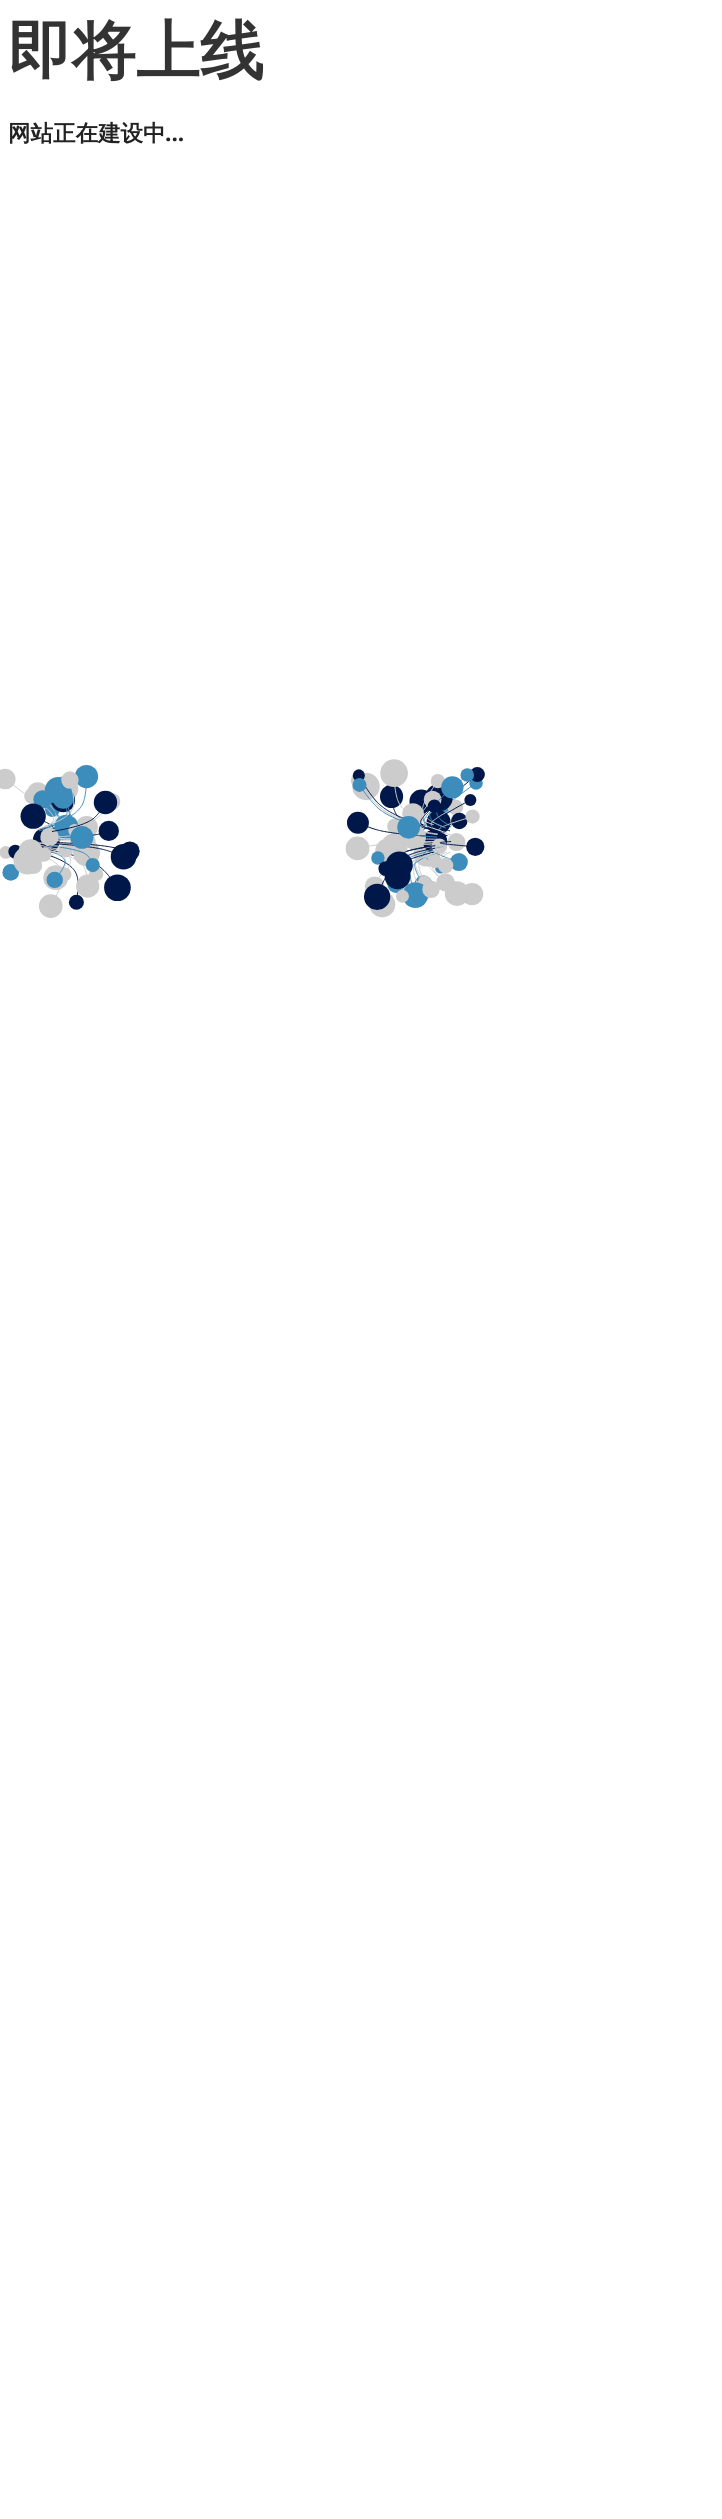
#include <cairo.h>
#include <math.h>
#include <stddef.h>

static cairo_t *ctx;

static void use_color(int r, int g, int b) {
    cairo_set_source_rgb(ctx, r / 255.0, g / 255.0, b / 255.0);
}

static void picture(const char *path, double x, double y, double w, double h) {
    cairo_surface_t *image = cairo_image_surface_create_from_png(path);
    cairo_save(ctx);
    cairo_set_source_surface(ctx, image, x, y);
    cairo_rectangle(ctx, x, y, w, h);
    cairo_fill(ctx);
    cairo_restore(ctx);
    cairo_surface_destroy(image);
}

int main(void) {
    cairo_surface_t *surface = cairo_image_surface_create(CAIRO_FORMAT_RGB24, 722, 2519);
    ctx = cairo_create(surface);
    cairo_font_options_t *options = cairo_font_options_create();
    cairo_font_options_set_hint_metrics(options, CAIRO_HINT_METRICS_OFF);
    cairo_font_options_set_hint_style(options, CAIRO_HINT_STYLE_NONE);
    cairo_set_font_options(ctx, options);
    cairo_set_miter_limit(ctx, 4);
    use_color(255, 255, 255);
    cairo_paint(ctx);
    cairo_select_font_face(ctx, "WenQuanYi Zen Hei", CAIRO_FONT_SLANT_NORMAL, CAIRO_FONT_WEIGHT_BOLD);
    cairo_set_font_size(ctx, 64);
    use_color(51, 51, 51);
    cairo_move_to(ctx, 8, 73);
    cairo_show_text(ctx, "即将上线");
    cairo_set_font_size(ctx, 22.5);
    use_color(34, 34, 34);
    cairo_move_to(ctx, 8, 141);
    cairo_show_text(ctx, "网站正在建设中");
    cairo_select_font_face(ctx, "Open Sans", CAIRO_FONT_SLANT_NORMAL, CAIRO_FONT_WEIGHT_BOLD);
    cairo_move_to(ctx, 165, 141);
    cairo_show_text(ctx, "...");
    picture("img1.png", 0, 759, 485, 159);
    cairo_surface_write_to_png(surface, "result.png");
    cairo_font_options_destroy(options);
    cairo_destroy(ctx);
    cairo_surface_destroy(surface);
    return 0;
}
